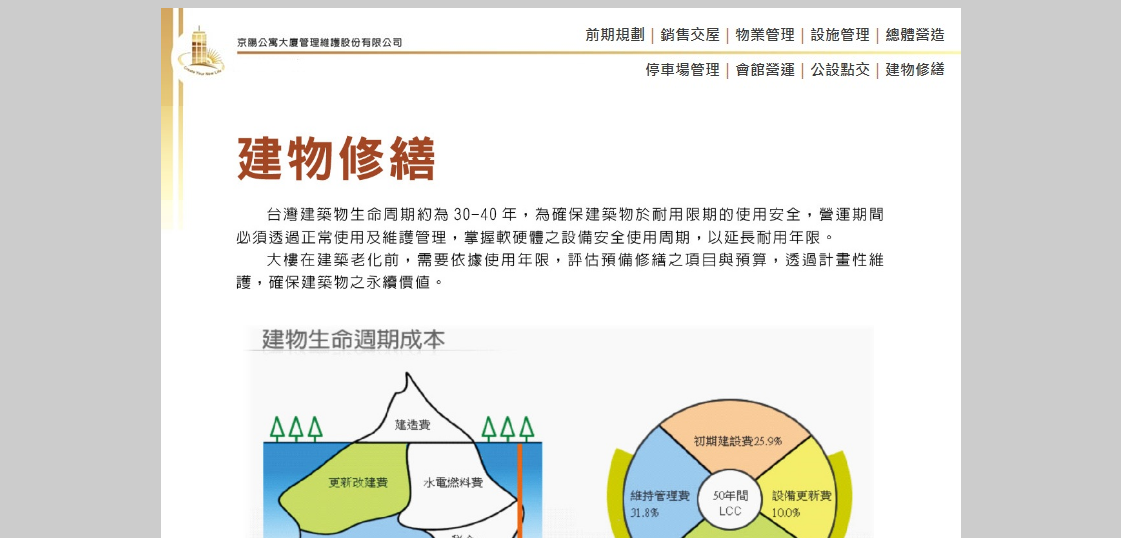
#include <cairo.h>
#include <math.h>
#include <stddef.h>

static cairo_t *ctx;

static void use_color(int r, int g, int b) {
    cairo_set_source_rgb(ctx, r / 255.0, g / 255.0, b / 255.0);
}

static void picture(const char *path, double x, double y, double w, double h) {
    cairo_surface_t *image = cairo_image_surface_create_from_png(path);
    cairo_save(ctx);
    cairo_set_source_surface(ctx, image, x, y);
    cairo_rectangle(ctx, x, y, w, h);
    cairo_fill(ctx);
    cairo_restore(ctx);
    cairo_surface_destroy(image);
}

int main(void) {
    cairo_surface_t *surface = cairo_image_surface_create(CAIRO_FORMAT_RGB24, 1121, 538);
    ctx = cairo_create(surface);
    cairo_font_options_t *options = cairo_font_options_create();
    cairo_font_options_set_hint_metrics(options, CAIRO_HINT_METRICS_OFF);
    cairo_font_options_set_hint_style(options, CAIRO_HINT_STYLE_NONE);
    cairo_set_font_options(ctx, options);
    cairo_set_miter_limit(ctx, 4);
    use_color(204, 204, 204);
    cairo_paint(ctx);
    use_color(255, 255, 255);
    cairo_rectangle(ctx, 161, 106, 800, 432);
    cairo_fill(ctx);
    picture("img1.png", 161, 8, 800, 98);
    picture("img2.png", 161, 106, 279, 94);
    picture("img3.png", 161, 200, 723, 90);
    picture("img4.png", 243, 325, 631, 213);
    cairo_surface_write_to_png(surface, "result.png");
    cairo_font_options_destroy(options);
    cairo_destroy(ctx);
    cairo_surface_destroy(surface);
    return 0;
}
